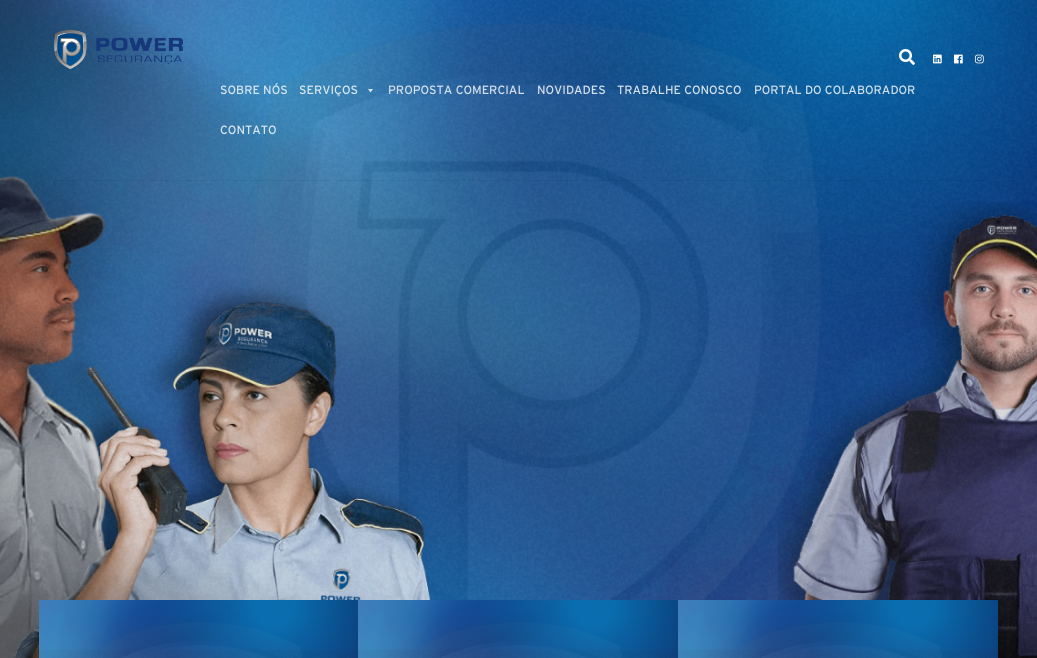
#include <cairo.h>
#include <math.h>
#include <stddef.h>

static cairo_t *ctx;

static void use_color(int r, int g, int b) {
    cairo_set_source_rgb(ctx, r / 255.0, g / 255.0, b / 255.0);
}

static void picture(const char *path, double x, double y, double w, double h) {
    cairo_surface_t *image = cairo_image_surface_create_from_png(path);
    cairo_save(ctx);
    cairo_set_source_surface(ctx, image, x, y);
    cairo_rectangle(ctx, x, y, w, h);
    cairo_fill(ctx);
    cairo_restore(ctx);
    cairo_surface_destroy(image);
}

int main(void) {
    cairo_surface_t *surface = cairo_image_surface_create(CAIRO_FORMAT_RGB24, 1037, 658);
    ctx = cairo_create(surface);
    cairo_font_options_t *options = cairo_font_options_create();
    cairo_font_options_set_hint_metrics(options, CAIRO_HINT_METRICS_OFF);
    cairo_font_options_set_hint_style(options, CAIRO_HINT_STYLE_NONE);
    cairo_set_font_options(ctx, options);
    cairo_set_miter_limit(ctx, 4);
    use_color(255, 255, 255);
    cairo_paint(ctx);
    picture("img1.png", 0, 0, 1037, 658);
    cairo_set_source_rgba(ctx, 0, 0, 0, 0.06);
    cairo_rectangle(ctx, 54, 180, 930, 1);
    cairo_fill(ctx);
    picture("img2.png", 54, 30, 129, 39);
    cairo_set_source_rgba(ctx, 0.125, 0.275, 0.537, 0.31);
    cairo_rectangle(ctx, 893, 46, 1, 24);
    cairo_fill(ctx);
    picture("img3.png", 899, 49, 16, 16);
    picture("img4.png", 933, 54, 9, 10);
    picture("img5.png", 954, 54, 9, 10);
    picture("img6.png", 975, 54, 9, 10);
    cairo_select_font_face(ctx, "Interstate", CAIRO_FONT_SLANT_NORMAL, CAIRO_FONT_WEIGHT_NORMAL);
    cairo_set_font_size(ctx, 12);
    use_color(216, 231, 241);
    cairo_move_to(ctx, 220, 94);
    cairo_show_text(ctx, "SOBRE NÓS");
    cairo_move_to(ctx, 299, 94);
    cairo_show_text(ctx, "SERVIÇOS");
    cairo_set_source_rgba(ctx, 1, 1, 1, 0.8);
    cairo_new_path(ctx);
    cairo_move_to(ctx, 373, 89);
    cairo_line_to(ctx, 370.5, 92.5);
    cairo_line_to(ctx, 368, 89);
    cairo_close_path(ctx);
    cairo_fill(ctx);
    use_color(213, 224, 236);
    cairo_move_to(ctx, 388, 94);
    cairo_show_text(ctx, "PROPOSTA COMERCIAL");
    cairo_move_to(ctx, 537, 94);
    cairo_show_text(ctx, "NOVIDADES");
    cairo_move_to(ctx, 617, 94);
    cairo_show_text(ctx, "TRABALHE CONOSCO");
    use_color(206, 223, 235);
    cairo_move_to(ctx, 754, 94);
    cairo_show_text(ctx, "PORTAL DO COLABORADOR");
    use_color(216, 231, 241);
    cairo_move_to(ctx, 220, 134);
    cairo_show_text(ctx, "CONTATO");
    picture("img7.png", 39, 600, 319, 58);
    picture("img8.png", 358, 600, 320, 58);
    picture("img8.png", 678, 600, 320, 58);
    cairo_surface_write_to_png(surface, "result.png");
    cairo_font_options_destroy(options);
    cairo_destroy(ctx);
    cairo_surface_destroy(surface);
    return 0;
}
